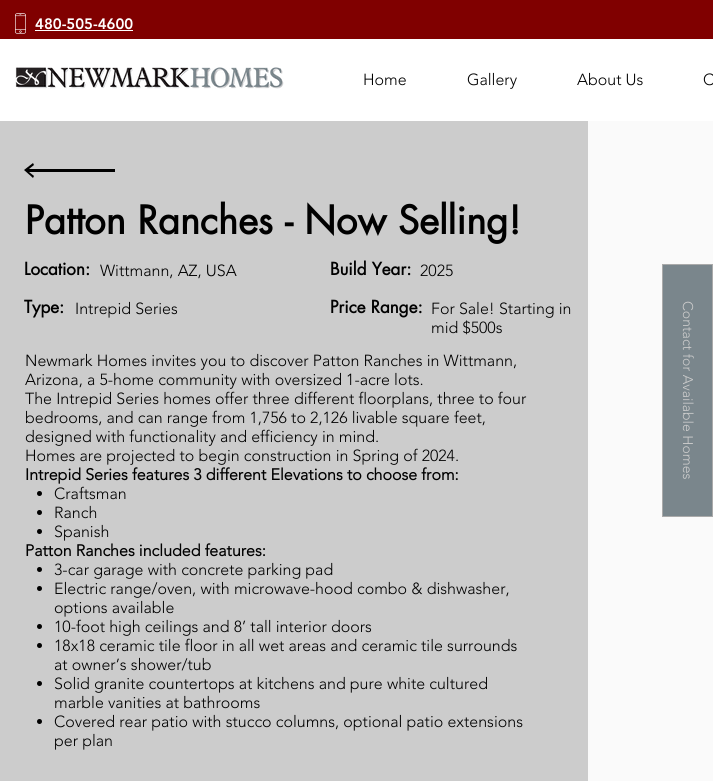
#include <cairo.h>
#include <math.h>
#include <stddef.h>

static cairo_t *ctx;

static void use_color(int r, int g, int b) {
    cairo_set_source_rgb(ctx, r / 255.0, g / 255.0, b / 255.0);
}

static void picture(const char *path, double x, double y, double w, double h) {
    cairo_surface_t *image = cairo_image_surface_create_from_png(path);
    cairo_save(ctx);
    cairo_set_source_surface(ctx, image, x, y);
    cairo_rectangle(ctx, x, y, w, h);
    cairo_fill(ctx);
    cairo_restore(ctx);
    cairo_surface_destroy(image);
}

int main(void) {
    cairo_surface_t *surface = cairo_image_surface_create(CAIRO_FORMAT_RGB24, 713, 781);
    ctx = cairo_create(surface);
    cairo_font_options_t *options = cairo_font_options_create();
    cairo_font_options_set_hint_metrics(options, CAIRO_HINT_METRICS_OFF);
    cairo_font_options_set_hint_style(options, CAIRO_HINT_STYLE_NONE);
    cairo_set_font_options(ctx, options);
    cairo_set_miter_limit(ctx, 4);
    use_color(204, 204, 204);
    cairo_paint(ctx);
    use_color(128, 0, 0);
    cairo_rectangle(ctx, 0, 0, 713, 39);
    cairo_fill(ctx);
    picture("img1.png", 15, 13, 11, 21);
    cairo_select_font_face(ctx, "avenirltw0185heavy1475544 Black", CAIRO_FONT_SLANT_NORMAL, CAIRO_FONT_WEIGHT_NORMAL);
    cairo_set_font_size(ctx, 15);
    use_color(255, 255, 255);
    cairo_move_to(ctx, 35, 29);
    cairo_show_text(ctx, "480-505-4600");
    cairo_rectangle(ctx, 35, 30, 98, 1);
    cairo_fill(ctx);
    cairo_rectangle(ctx, 0, 39, 713, 82);
    cairo_fill(ctx);
    picture("img2.png", 15, 67, 269, 22);
    cairo_select_font_face(ctx, "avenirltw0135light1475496 Light", CAIRO_FONT_SLANT_NORMAL, CAIRO_FONT_WEIGHT_NORMAL);
    cairo_set_font_size(ctx, 16);
    use_color(0, 0, 0);
    cairo_move_to(ctx, 363, 85);
    cairo_show_text(ctx, "Home");
    cairo_move_to(ctx, 467, 85);
    cairo_show_text(ctx, "Gallery");
    cairo_move_to(ctx, 577, 85);
    cairo_show_text(ctx, "About Us");
    cairo_move_to(ctx, 703, 85);
    cairo_show_text(ctx, "C");
    cairo_new_path(ctx);
    cairo_move_to(ctx, 33, 163);
    cairo_line_to(ctx, 24, 170);
    cairo_line_to(ctx, 33, 178);
    cairo_line_to(ctx, 34, 176);
    cairo_line_to(ctx, 29, 172);
    cairo_line_to(ctx, 115, 172);
    cairo_line_to(ctx, 115, 169);
    cairo_line_to(ctx, 29, 169);
    cairo_line_to(ctx, 34, 165);
    cairo_close_path(ctx);
    cairo_fill(ctx);
    cairo_select_font_face(ctx, "futura", CAIRO_FONT_SLANT_NORMAL, CAIRO_FONT_WEIGHT_BOLD);
    cairo_set_font_size(ctx, 38);
    cairo_move_to(ctx, 25, 234);
    cairo_show_text(ctx, "Patton Ranches - Now Selling!");
    cairo_set_font_size(ctx, 17);
    cairo_move_to(ctx, 24, 275);
    cairo_show_text(ctx, "Location:");
    cairo_select_font_face(ctx, "avenirltw0135light1475496 Light", CAIRO_FONT_SLANT_NORMAL, CAIRO_FONT_WEIGHT_NORMAL);
    cairo_set_font_size(ctx, 16);
    cairo_move_to(ctx, 100, 276);
    cairo_show_text(ctx, "Wittmann, AZ, USA");
    cairo_select_font_face(ctx, "futura", CAIRO_FONT_SLANT_NORMAL, CAIRO_FONT_WEIGHT_BOLD);
    cairo_set_font_size(ctx, 17);
    cairo_move_to(ctx, 330, 275);
    cairo_show_text(ctx, "Build Year:");
    cairo_select_font_face(ctx, "avenirltw0135light1475496 Light", CAIRO_FONT_SLANT_NORMAL, CAIRO_FONT_WEIGHT_NORMAL);
    cairo_set_font_size(ctx, 16);
    cairo_move_to(ctx, 420, 276);
    cairo_show_text(ctx, "2025");
    cairo_select_font_face(ctx, "futura", CAIRO_FONT_SLANT_NORMAL, CAIRO_FONT_WEIGHT_BOLD);
    cairo_set_font_size(ctx, 17);
    cairo_move_to(ctx, 24, 313);
    cairo_show_text(ctx, "Type:");
    cairo_select_font_face(ctx, "avenirltw0135light1475496 Light", CAIRO_FONT_SLANT_NORMAL, CAIRO_FONT_WEIGHT_NORMAL);
    cairo_set_font_size(ctx, 16);
    cairo_move_to(ctx, 75, 314);
    cairo_show_text(ctx, "Intrepid Series");
    cairo_select_font_face(ctx, "futura", CAIRO_FONT_SLANT_NORMAL, CAIRO_FONT_WEIGHT_BOLD);
    cairo_set_font_size(ctx, 17);
    cairo_move_to(ctx, 330, 313);
    cairo_show_text(ctx, "Price Range:");
    cairo_select_font_face(ctx, "avenirltw0135light1475496 Light", CAIRO_FONT_SLANT_NORMAL, CAIRO_FONT_WEIGHT_NORMAL);
    cairo_set_font_size(ctx, 16);
    cairo_move_to(ctx, 431, 314);
    cairo_show_text(ctx, "For Sale! Starting in");
    cairo_move_to(ctx, 431, 333);
    cairo_show_text(ctx, "mid $500s");
    cairo_move_to(ctx, 25, 366);
    cairo_show_text(ctx, "Newmark Homes invites you to discover Patton Ranches in Wittmann,");
    cairo_move_to(ctx, 25, 385);
    cairo_show_text(ctx, "Arizona, a 5-home community with oversized 1-acre lots.");
    cairo_move_to(ctx, 25, 404);
    cairo_show_text(ctx, "The Intrepid Series homes offer three different floorplans, three to four");
    cairo_move_to(ctx, 25, 423);
    cairo_show_text(ctx, "bedrooms, and can range from 1,756 to 2,126 livable square feet,");
    cairo_move_to(ctx, 25, 442);
    cairo_show_text(ctx, "designed with functionality and efficiency in mind.");
    cairo_move_to(ctx, 25, 461);
    cairo_show_text(ctx, "Homes are projected to begin construction in Spring of 2024.");
    cairo_select_font_face(ctx, "avenirltw0135light1475496", CAIRO_FONT_SLANT_NORMAL, CAIRO_FONT_WEIGHT_BOLD);
    cairo_move_to(ctx, 25, 480);
    cairo_show_text(ctx, "Intrepid Series features 3 different Elevations to choose from:");
    cairo_new_path(ctx);
    cairo_arc(ctx, 39.5, 493.5, 2.5, 0, 2 * M_PI);
    cairo_fill(ctx);
    cairo_select_font_face(ctx, "avenirltw0135light1475496 Light", CAIRO_FONT_SLANT_NORMAL, CAIRO_FONT_WEIGHT_NORMAL);
    cairo_move_to(ctx, 54, 499);
    cairo_show_text(ctx, "Craftsman");
    cairo_new_path(ctx);
    cairo_arc(ctx, 39.5, 512.5, 2.5, 0, 2 * M_PI);
    cairo_fill(ctx);
    cairo_move_to(ctx, 54, 518);
    cairo_show_text(ctx, "Ranch");
    cairo_new_path(ctx);
    cairo_arc(ctx, 39.5, 531.5, 2.5, 0, 2 * M_PI);
    cairo_fill(ctx);
    cairo_move_to(ctx, 54, 537);
    cairo_show_text(ctx, "Spanish");
    cairo_select_font_face(ctx, "avenirltw0135light1475496", CAIRO_FONT_SLANT_NORMAL, CAIRO_FONT_WEIGHT_BOLD);
    cairo_move_to(ctx, 25, 556);
    cairo_show_text(ctx, "Patton Ranches included features:");
    cairo_new_path(ctx);
    cairo_arc(ctx, 39.5, 569.5, 2.5, 0, 2 * M_PI);
    cairo_fill(ctx);
    cairo_select_font_face(ctx, "avenirltw0135light1475496 Light", CAIRO_FONT_SLANT_NORMAL, CAIRO_FONT_WEIGHT_NORMAL);
    cairo_move_to(ctx, 54, 575);
    cairo_show_text(ctx, "3-car garage with concrete parking pad");
    cairo_new_path(ctx);
    cairo_arc(ctx, 39.5, 588.5, 2.5, 0, 2 * M_PI);
    cairo_fill(ctx);
    cairo_move_to(ctx, 54, 594);
    cairo_show_text(ctx, "Electric range/oven, with microwave-hood combo & dishwasher,");
    cairo_move_to(ctx, 54, 613);
    cairo_show_text(ctx, "options available");
    cairo_new_path(ctx);
    cairo_arc(ctx, 39.5, 626.5, 2.5, 0, 2 * M_PI);
    cairo_fill(ctx);
    cairo_move_to(ctx, 54, 632);
    cairo_show_text(ctx, "10-foot high ceilings and 8’ tall interior doors");
    cairo_new_path(ctx);
    cairo_arc(ctx, 39.5, 645.5, 2.5, 0, 2 * M_PI);
    cairo_fill(ctx);
    cairo_move_to(ctx, 54, 651);
    cairo_show_text(ctx, "18x18 ceramic tile floor in all wet areas and ceramic tile surrounds");
    cairo_move_to(ctx, 54, 670);
    cairo_show_text(ctx, "at owner’s shower/tub");
    cairo_new_path(ctx);
    cairo_arc(ctx, 39.5, 683.5, 2.5, 0, 2 * M_PI);
    cairo_fill(ctx);
    cairo_move_to(ctx, 54, 689);
    cairo_show_text(ctx, "Solid granite countertops at kitchens and pure white cultured");
    cairo_move_to(ctx, 54, 708);
    cairo_show_text(ctx, "marble vanities at bathrooms");
    cairo_new_path(ctx);
    cairo_arc(ctx, 39.5, 721.5, 2.5, 0, 2 * M_PI);
    cairo_fill(ctx);
    cairo_move_to(ctx, 54, 727);
    cairo_show_text(ctx, "Covered rear patio with stucco columns, optional patio extensions");
    cairo_move_to(ctx, 54, 746);
    cairo_show_text(ctx, "per plan");
    use_color(250, 250, 250);
    cairo_rectangle(ctx, 588, 121, 125, 660);
    cairo_fill(ctx);
    use_color(122, 134, 140);
    cairo_rectangle(ctx, 663, 265, 49, 251);
    cairo_fill(ctx);
    cairo_new_path(ctx);
    cairo_move_to(ctx, 712.5, 264.5);
    cairo_line_to(ctx, 712.5, 516.5);
    cairo_line_to(ctx, 662.5, 516.5);
    cairo_line_to(ctx, 662.5, 264.5);
    cairo_close_path(ctx);
    use_color(170, 170, 170);
    cairo_set_line_width(ctx, 1);
    cairo_stroke(ctx);
    cairo_set_font_size(ctx, 14);
    use_color(204, 204, 204);
    cairo_save(ctx);
    cairo_translate(ctx, 683, 301);
    cairo_rotate(ctx, 90 * M_PI / 180);
    cairo_move_to(ctx, 0, 0);
    cairo_show_text(ctx, "Contact for Available Homes");
    cairo_restore(ctx);
    cairo_surface_write_to_png(surface, "result.png");
    cairo_font_options_destroy(options);
    cairo_destroy(ctx);
    cairo_surface_destroy(surface);
    return 0;
}
